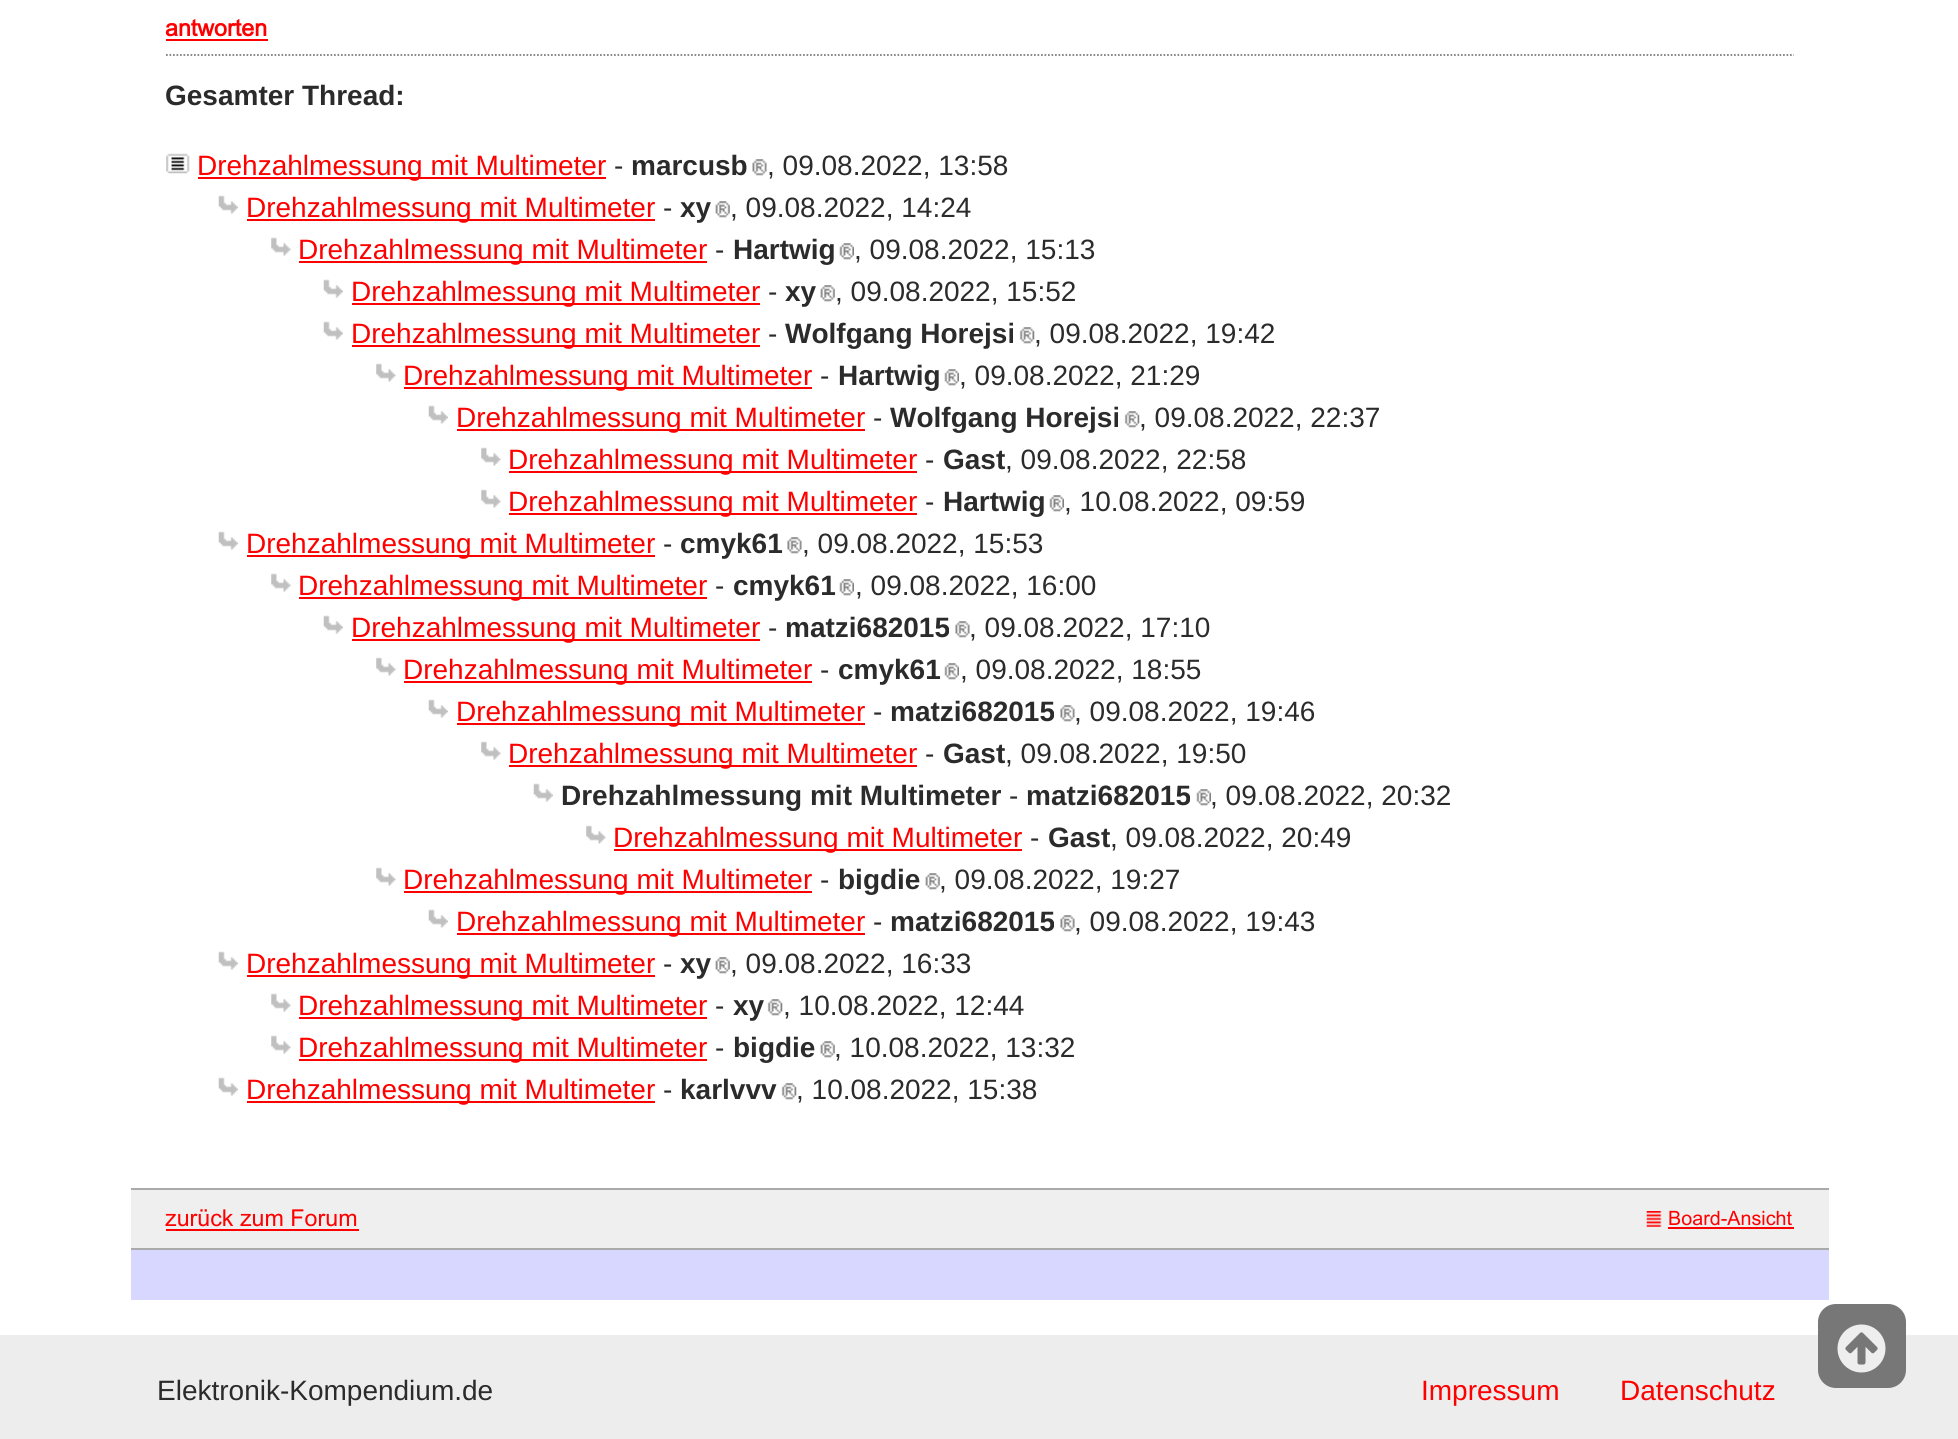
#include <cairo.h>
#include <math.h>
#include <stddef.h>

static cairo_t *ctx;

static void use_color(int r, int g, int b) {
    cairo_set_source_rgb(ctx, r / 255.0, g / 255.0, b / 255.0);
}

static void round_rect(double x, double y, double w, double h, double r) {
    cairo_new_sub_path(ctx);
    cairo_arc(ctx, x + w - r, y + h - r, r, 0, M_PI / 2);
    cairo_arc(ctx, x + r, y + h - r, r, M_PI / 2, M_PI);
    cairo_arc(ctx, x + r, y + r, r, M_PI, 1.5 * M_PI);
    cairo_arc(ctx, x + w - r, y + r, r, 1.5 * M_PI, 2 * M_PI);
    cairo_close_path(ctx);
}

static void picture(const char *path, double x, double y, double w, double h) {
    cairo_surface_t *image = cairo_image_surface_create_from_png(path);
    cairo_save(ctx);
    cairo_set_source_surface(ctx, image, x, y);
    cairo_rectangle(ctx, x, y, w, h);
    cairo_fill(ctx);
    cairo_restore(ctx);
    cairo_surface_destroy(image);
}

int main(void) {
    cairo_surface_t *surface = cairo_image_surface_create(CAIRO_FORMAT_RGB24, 1958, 1439);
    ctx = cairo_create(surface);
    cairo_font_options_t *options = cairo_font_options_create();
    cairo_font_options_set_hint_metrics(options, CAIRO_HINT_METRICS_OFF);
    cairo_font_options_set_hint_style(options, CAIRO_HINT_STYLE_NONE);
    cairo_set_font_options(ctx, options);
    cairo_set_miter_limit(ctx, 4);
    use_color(255, 255, 255);
    cairo_paint(ctx);
    cairo_select_font_face(ctx, "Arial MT", CAIRO_FONT_SLANT_NORMAL, CAIRO_FONT_WEIGHT_BOLD);
    cairo_set_font_size(ctx, 23.25);
    use_color(255, 0, 0);
    cairo_move_to(ctx, 165, 36);
    cairo_show_text(ctx, "antworten");
    cairo_rectangle(ctx, 166, 39, 102, 2);
    cairo_fill(ctx);
    cairo_new_path(ctx);
    cairo_move_to(ctx, 166, 55);
    cairo_line_to(ctx, 1794, 55);
    use_color(128, 128, 128);
    cairo_set_line_width(ctx, 1.8);
    cairo_set_dash(ctx, (double[]){1.75, 1.75}, 2, 0);
    cairo_stroke(ctx);
    cairo_select_font_face(ctx, "Liberation Sans", CAIRO_FONT_SLANT_NORMAL, CAIRO_FONT_WEIGHT_BOLD);
    cairo_set_font_size(ctx, 28);
    use_color(43, 43, 43);
    cairo_move_to(ctx, 165, 105);
    cairo_show_text(ctx, "Gesamter Thread:");
    picture("img1.png", 166, 153, 24, 21);
    use_color(255, 0, 0);
    cairo_rectangle(ctx, 198, 177, 408, 2);
    cairo_fill(ctx);
    cairo_select_font_face(ctx, "Liberation Sans", CAIRO_FONT_SLANT_NORMAL, CAIRO_FONT_WEIGHT_NORMAL);
    cairo_move_to(ctx, 197, 175);
    cairo_show_text(ctx, "Drehzahlmessung mit Multimeter");
    use_color(43, 43, 43);
    cairo_move_to(ctx, 614, 175);
    cairo_show_text(ctx, "-");
    cairo_select_font_face(ctx, "Liberation Sans", CAIRO_FONT_SLANT_NORMAL, CAIRO_FONT_WEIGHT_BOLD);
    cairo_move_to(ctx, 631, 175);
    cairo_show_text(ctx, "marcusb");
    picture("img2.png", 752, 159, 15, 17);
    cairo_select_font_face(ctx, "Liberation Sans", CAIRO_FONT_SLANT_NORMAL, CAIRO_FONT_WEIGHT_NORMAL);
    cairo_move_to(ctx, 767, 175);
    cairo_show_text(ctx, ", 09.08.2022, 13:58");
    picture("img3.png", 218, 195, 20, 19);
    use_color(255, 0, 0);
    cairo_rectangle(ctx, 247, 219, 408, 2);
    cairo_fill(ctx);
    cairo_move_to(ctx, 246, 217);
    cairo_show_text(ctx, "Drehzahlmessung mit Multimeter");
    use_color(43, 43, 43);
    cairo_move_to(ctx, 663, 217);
    cairo_show_text(ctx, "-");
    cairo_select_font_face(ctx, "Liberation Sans", CAIRO_FONT_SLANT_NORMAL, CAIRO_FONT_WEIGHT_BOLD);
    cairo_move_to(ctx, 680, 217);
    cairo_show_text(ctx, "xy");
    picture("img4.png", 715, 201, 15, 17);
    cairo_select_font_face(ctx, "Liberation Sans", CAIRO_FONT_SLANT_NORMAL, CAIRO_FONT_WEIGHT_NORMAL);
    cairo_move_to(ctx, 730, 217);
    cairo_show_text(ctx, ", 09.08.2022, 14:24");
    picture("img5.png", 271, 237, 20, 19);
    use_color(255, 0, 0);
    cairo_rectangle(ctx, 299, 261, 408, 2);
    cairo_fill(ctx);
    cairo_move_to(ctx, 298, 259);
    cairo_show_text(ctx, "Drehzahlmessung mit Multimeter");
    use_color(43, 43, 43);
    cairo_move_to(ctx, 715, 259);
    cairo_show_text(ctx, "-");
    cairo_select_font_face(ctx, "Liberation Sans", CAIRO_FONT_SLANT_NORMAL, CAIRO_FONT_WEIGHT_BOLD);
    cairo_move_to(ctx, 733, 259);
    cairo_show_text(ctx, "Hartwig");
    picture("img6.png", 839, 243, 15, 17);
    cairo_select_font_face(ctx, "Liberation Sans", CAIRO_FONT_SLANT_NORMAL, CAIRO_FONT_WEIGHT_NORMAL);
    cairo_move_to(ctx, 854, 259);
    cairo_show_text(ctx, ", 09.08.2022, 15:13");
    picture("img7.png", 323, 279, 20, 19);
    use_color(255, 0, 0);
    cairo_rectangle(ctx, 352, 303, 408, 2);
    cairo_fill(ctx);
    cairo_move_to(ctx, 351, 301);
    cairo_show_text(ctx, "Drehzahlmessung mit Multimeter");
    use_color(43, 43, 43);
    cairo_move_to(ctx, 768, 301);
    cairo_show_text(ctx, "-");
    cairo_select_font_face(ctx, "Liberation Sans", CAIRO_FONT_SLANT_NORMAL, CAIRO_FONT_WEIGHT_BOLD);
    cairo_move_to(ctx, 785, 301);
    cairo_show_text(ctx, "xy");
    picture("img8.png", 820, 285, 15, 17);
    cairo_select_font_face(ctx, "Liberation Sans", CAIRO_FONT_SLANT_NORMAL, CAIRO_FONT_WEIGHT_NORMAL);
    cairo_move_to(ctx, 835, 301);
    cairo_show_text(ctx, ", 09.08.2022, 15:52");
    picture("img7.png", 323, 321, 20, 19);
    use_color(255, 0, 0);
    cairo_rectangle(ctx, 352, 345, 408, 2);
    cairo_fill(ctx);
    cairo_move_to(ctx, 351, 343);
    cairo_show_text(ctx, "Drehzahlmessung mit Multimeter");
    use_color(43, 43, 43);
    cairo_move_to(ctx, 768, 343);
    cairo_show_text(ctx, "-");
    cairo_select_font_face(ctx, "Liberation Sans", CAIRO_FONT_SLANT_NORMAL, CAIRO_FONT_WEIGHT_BOLD);
    cairo_move_to(ctx, 785, 343);
    cairo_show_text(ctx, "Wolfgang Horejsi");
    picture("img9.png", 1019, 327, 16, 17);
    cairo_select_font_face(ctx, "Liberation Sans", CAIRO_FONT_SLANT_NORMAL, CAIRO_FONT_WEIGHT_NORMAL);
    cairo_move_to(ctx, 1034, 343);
    cairo_show_text(ctx, ", 09.08.2022, 19:42");
    picture("img5.png", 376, 363, 20, 19);
    use_color(255, 0, 0);
    cairo_rectangle(ctx, 404, 387, 408, 2);
    cairo_fill(ctx);
    cairo_move_to(ctx, 403, 385);
    cairo_show_text(ctx, "Drehzahlmessung mit Multimeter");
    use_color(43, 43, 43);
    cairo_move_to(ctx, 820, 385);
    cairo_show_text(ctx, "-");
    cairo_select_font_face(ctx, "Liberation Sans", CAIRO_FONT_SLANT_NORMAL, CAIRO_FONT_WEIGHT_BOLD);
    cairo_move_to(ctx, 838, 385);
    cairo_show_text(ctx, "Hartwig");
    picture("img10.png", 944, 369, 15, 17);
    cairo_select_font_face(ctx, "Liberation Sans", CAIRO_FONT_SLANT_NORMAL, CAIRO_FONT_WEIGHT_NORMAL);
    cairo_move_to(ctx, 959, 385);
    cairo_show_text(ctx, ", 09.08.2022, 21:29");
    picture("img7.png", 428, 405, 20, 19);
    use_color(255, 0, 0);
    cairo_rectangle(ctx, 457, 429, 408, 2);
    cairo_fill(ctx);
    cairo_move_to(ctx, 456, 427);
    cairo_show_text(ctx, "Drehzahlmessung mit Multimeter");
    use_color(43, 43, 43);
    cairo_move_to(ctx, 873, 427);
    cairo_show_text(ctx, "-");
    cairo_select_font_face(ctx, "Liberation Sans", CAIRO_FONT_SLANT_NORMAL, CAIRO_FONT_WEIGHT_BOLD);
    cairo_move_to(ctx, 890, 427);
    cairo_show_text(ctx, "Wolfgang Horejsi");
    picture("img11.png", 1124, 411, 16, 17);
    cairo_select_font_face(ctx, "Liberation Sans", CAIRO_FONT_SLANT_NORMAL, CAIRO_FONT_WEIGHT_NORMAL);
    cairo_move_to(ctx, 1139, 427);
    cairo_show_text(ctx, ", 09.08.2022, 22:37");
    picture("img5.png", 481, 447, 20, 19);
    use_color(255, 0, 0);
    cairo_rectangle(ctx, 509, 471, 408, 2);
    cairo_fill(ctx);
    cairo_move_to(ctx, 508, 469);
    cairo_show_text(ctx, "Drehzahlmessung mit Multimeter");
    use_color(43, 43, 43);
    cairo_move_to(ctx, 925, 469);
    cairo_show_text(ctx, "-");
    cairo_select_font_face(ctx, "Liberation Sans", CAIRO_FONT_SLANT_NORMAL, CAIRO_FONT_WEIGHT_BOLD);
    cairo_move_to(ctx, 943, 469);
    cairo_show_text(ctx, "Gast");
    cairo_select_font_face(ctx, "Liberation Sans", CAIRO_FONT_SLANT_NORMAL, CAIRO_FONT_WEIGHT_NORMAL);
    cairo_move_to(ctx, 1005, 469);
    cairo_show_text(ctx, ", 09.08.2022, 22:58");
    picture("img5.png", 481, 489, 20, 19);
    use_color(255, 0, 0);
    cairo_rectangle(ctx, 509, 513, 408, 2);
    cairo_fill(ctx);
    cairo_move_to(ctx, 508, 511);
    cairo_show_text(ctx, "Drehzahlmessung mit Multimeter");
    use_color(43, 43, 43);
    cairo_move_to(ctx, 925, 511);
    cairo_show_text(ctx, "-");
    cairo_select_font_face(ctx, "Liberation Sans", CAIRO_FONT_SLANT_NORMAL, CAIRO_FONT_WEIGHT_BOLD);
    cairo_move_to(ctx, 943, 511);
    cairo_show_text(ctx, "Hartwig");
    picture("img10.png", 1049, 495, 15, 17);
    cairo_select_font_face(ctx, "Liberation Sans", CAIRO_FONT_SLANT_NORMAL, CAIRO_FONT_WEIGHT_NORMAL);
    cairo_move_to(ctx, 1064, 511);
    cairo_show_text(ctx, ", 10.08.2022, 09:59");
    picture("img3.png", 218, 531, 20, 19);
    use_color(255, 0, 0);
    cairo_rectangle(ctx, 247, 555, 408, 2);
    cairo_fill(ctx);
    cairo_move_to(ctx, 246, 553);
    cairo_show_text(ctx, "Drehzahlmessung mit Multimeter");
    use_color(43, 43, 43);
    cairo_move_to(ctx, 663, 553);
    cairo_show_text(ctx, "-");
    cairo_select_font_face(ctx, "Liberation Sans", CAIRO_FONT_SLANT_NORMAL, CAIRO_FONT_WEIGHT_BOLD);
    cairo_move_to(ctx, 680, 553);
    cairo_show_text(ctx, "cmyk61");
    picture("img12.png", 787, 537, 15, 17);
    cairo_select_font_face(ctx, "Liberation Sans", CAIRO_FONT_SLANT_NORMAL, CAIRO_FONT_WEIGHT_NORMAL);
    cairo_move_to(ctx, 802, 553);
    cairo_show_text(ctx, ", 09.08.2022, 15:53");
    picture("img5.png", 271, 573, 20, 19);
    use_color(255, 0, 0);
    cairo_rectangle(ctx, 299, 597, 408, 2);
    cairo_fill(ctx);
    cairo_move_to(ctx, 298, 595);
    cairo_show_text(ctx, "Drehzahlmessung mit Multimeter");
    use_color(43, 43, 43);
    cairo_move_to(ctx, 715, 595);
    cairo_show_text(ctx, "-");
    cairo_select_font_face(ctx, "Liberation Sans", CAIRO_FONT_SLANT_NORMAL, CAIRO_FONT_WEIGHT_BOLD);
    cairo_move_to(ctx, 733, 595);
    cairo_show_text(ctx, "cmyk61");
    picture("img6.png", 839, 579, 15, 17);
    cairo_select_font_face(ctx, "Liberation Sans", CAIRO_FONT_SLANT_NORMAL, CAIRO_FONT_WEIGHT_NORMAL);
    cairo_move_to(ctx, 855, 595);
    cairo_show_text(ctx, ", 09.08.2022, 16:00");
    picture("img7.png", 323, 615, 20, 19);
    use_color(255, 0, 0);
    cairo_rectangle(ctx, 352, 639, 408, 2);
    cairo_fill(ctx);
    cairo_move_to(ctx, 351, 637);
    cairo_show_text(ctx, "Drehzahlmessung mit Multimeter");
    use_color(43, 43, 43);
    cairo_move_to(ctx, 768, 637);
    cairo_show_text(ctx, "-");
    cairo_select_font_face(ctx, "Liberation Sans", CAIRO_FONT_SLANT_NORMAL, CAIRO_FONT_WEIGHT_BOLD);
    cairo_move_to(ctx, 785, 637);
    cairo_show_text(ctx, "matzi682015");
    picture("img12.png", 955, 621, 15, 17);
    cairo_select_font_face(ctx, "Liberation Sans", CAIRO_FONT_SLANT_NORMAL, CAIRO_FONT_WEIGHT_NORMAL);
    cairo_move_to(ctx, 969, 637);
    cairo_show_text(ctx, ", 09.08.2022, 17:10");
    picture("img5.png", 376, 657, 20, 19);
    use_color(255, 0, 0);
    cairo_rectangle(ctx, 404, 681, 408, 2);
    cairo_fill(ctx);
    cairo_move_to(ctx, 403, 679);
    cairo_show_text(ctx, "Drehzahlmessung mit Multimeter");
    use_color(43, 43, 43);
    cairo_move_to(ctx, 820, 679);
    cairo_show_text(ctx, "-");
    cairo_select_font_face(ctx, "Liberation Sans", CAIRO_FONT_SLANT_NORMAL, CAIRO_FONT_WEIGHT_BOLD);
    cairo_move_to(ctx, 838, 679);
    cairo_show_text(ctx, "cmyk61");
    picture("img10.png", 944, 663, 15, 17);
    cairo_select_font_face(ctx, "Liberation Sans", CAIRO_FONT_SLANT_NORMAL, CAIRO_FONT_WEIGHT_NORMAL);
    cairo_move_to(ctx, 960, 679);
    cairo_show_text(ctx, ", 09.08.2022, 18:55");
    picture("img7.png", 428, 699, 20, 19);
    use_color(255, 0, 0);
    cairo_rectangle(ctx, 457, 723, 408, 2);
    cairo_fill(ctx);
    cairo_move_to(ctx, 456, 721);
    cairo_show_text(ctx, "Drehzahlmessung mit Multimeter");
    use_color(43, 43, 43);
    cairo_move_to(ctx, 873, 721);
    cairo_show_text(ctx, "-");
    cairo_select_font_face(ctx, "Liberation Sans", CAIRO_FONT_SLANT_NORMAL, CAIRO_FONT_WEIGHT_BOLD);
    cairo_move_to(ctx, 890, 721);
    cairo_show_text(ctx, "matzi682015");
    picture("img12.png", 1060, 705, 15, 17);
    cairo_select_font_face(ctx, "Liberation Sans", CAIRO_FONT_SLANT_NORMAL, CAIRO_FONT_WEIGHT_NORMAL);
    cairo_move_to(ctx, 1074, 721);
    cairo_show_text(ctx, ", 09.08.2022, 19:46");
    picture("img5.png", 481, 741, 20, 19);
    use_color(255, 0, 0);
    cairo_rectangle(ctx, 509, 765, 408, 2);
    cairo_fill(ctx);
    cairo_move_to(ctx, 508, 763);
    cairo_show_text(ctx, "Drehzahlmessung mit Multimeter");
    use_color(43, 43, 43);
    cairo_move_to(ctx, 925, 763);
    cairo_show_text(ctx, "-");
    cairo_select_font_face(ctx, "Liberation Sans", CAIRO_FONT_SLANT_NORMAL, CAIRO_FONT_WEIGHT_BOLD);
    cairo_move_to(ctx, 943, 763);
    cairo_show_text(ctx, "Gast");
    cairo_select_font_face(ctx, "Liberation Sans", CAIRO_FONT_SLANT_NORMAL, CAIRO_FONT_WEIGHT_NORMAL);
    cairo_move_to(ctx, 1005, 763);
    cairo_show_text(ctx, ", 09.08.2022, 19:50");
    picture("img3.png", 533, 783, 20, 19);
    cairo_select_font_face(ctx, "Liberation Sans", CAIRO_FONT_SLANT_NORMAL, CAIRO_FONT_WEIGHT_BOLD);
    cairo_move_to(ctx, 561, 805);
    cairo_show_text(ctx, "Drehzahlmessung mit Multimeter");
    cairo_select_font_face(ctx, "Liberation Sans", CAIRO_FONT_SLANT_NORMAL, CAIRO_FONT_WEIGHT_NORMAL);
    cairo_move_to(ctx, 1009, 805);
    cairo_show_text(ctx, "-");
    cairo_select_font_face(ctx, "Liberation Sans", CAIRO_FONT_SLANT_NORMAL, CAIRO_FONT_WEIGHT_BOLD);
    cairo_move_to(ctx, 1026, 805);
    cairo_show_text(ctx, "matzi682015");
    picture("img10.png", 1196, 789, 15, 17);
    cairo_select_font_face(ctx, "Liberation Sans", CAIRO_FONT_SLANT_NORMAL, CAIRO_FONT_WEIGHT_NORMAL);
    cairo_move_to(ctx, 1210, 805);
    cairo_show_text(ctx, ", 09.08.2022, 20:32");
    picture("img5.png", 586, 825, 20, 19);
    use_color(255, 0, 0);
    cairo_rectangle(ctx, 614, 849, 408, 2);
    cairo_fill(ctx);
    cairo_move_to(ctx, 613, 847);
    cairo_show_text(ctx, "Drehzahlmessung mit Multimeter");
    use_color(43, 43, 43);
    cairo_move_to(ctx, 1030, 847);
    cairo_show_text(ctx, "-");
    cairo_select_font_face(ctx, "Liberation Sans", CAIRO_FONT_SLANT_NORMAL, CAIRO_FONT_WEIGHT_BOLD);
    cairo_move_to(ctx, 1048, 847);
    cairo_show_text(ctx, "Gast");
    cairo_select_font_face(ctx, "Liberation Sans", CAIRO_FONT_SLANT_NORMAL, CAIRO_FONT_WEIGHT_NORMAL);
    cairo_move_to(ctx, 1110, 847);
    cairo_show_text(ctx, ", 09.08.2022, 20:49");
    picture("img5.png", 376, 867, 20, 19);
    use_color(255, 0, 0);
    cairo_rectangle(ctx, 404, 891, 408, 2);
    cairo_fill(ctx);
    cairo_move_to(ctx, 403, 889);
    cairo_show_text(ctx, "Drehzahlmessung mit Multimeter");
    use_color(43, 43, 43);
    cairo_move_to(ctx, 820, 889);
    cairo_show_text(ctx, "-");
    cairo_select_font_face(ctx, "Liberation Sans", CAIRO_FONT_SLANT_NORMAL, CAIRO_FONT_WEIGHT_BOLD);
    cairo_move_to(ctx, 838, 889);
    cairo_show_text(ctx, "bigdie");
    picture("img4.png", 925, 873, 15, 17);
    cairo_select_font_face(ctx, "Liberation Sans", CAIRO_FONT_SLANT_NORMAL, CAIRO_FONT_WEIGHT_NORMAL);
    cairo_move_to(ctx, 939, 889);
    cairo_show_text(ctx, ", 09.08.2022, 19:27");
    picture("img7.png", 428, 909, 20, 19);
    use_color(255, 0, 0);
    cairo_rectangle(ctx, 457, 933, 408, 2);
    cairo_fill(ctx);
    cairo_move_to(ctx, 456, 931);
    cairo_show_text(ctx, "Drehzahlmessung mit Multimeter");
    use_color(43, 43, 43);
    cairo_move_to(ctx, 873, 931);
    cairo_show_text(ctx, "-");
    cairo_select_font_face(ctx, "Liberation Sans", CAIRO_FONT_SLANT_NORMAL, CAIRO_FONT_WEIGHT_BOLD);
    cairo_move_to(ctx, 890, 931);
    cairo_show_text(ctx, "matzi682015");
    picture("img12.png", 1060, 915, 15, 17);
    cairo_select_font_face(ctx, "Liberation Sans", CAIRO_FONT_SLANT_NORMAL, CAIRO_FONT_WEIGHT_NORMAL);
    cairo_move_to(ctx, 1074, 931);
    cairo_show_text(ctx, ", 09.08.2022, 19:43");
    picture("img3.png", 218, 951, 20, 19);
    use_color(255, 0, 0);
    cairo_rectangle(ctx, 247, 975, 408, 2);
    cairo_fill(ctx);
    cairo_move_to(ctx, 246, 973);
    cairo_show_text(ctx, "Drehzahlmessung mit Multimeter");
    use_color(43, 43, 43);
    cairo_move_to(ctx, 663, 973);
    cairo_show_text(ctx, "-");
    cairo_select_font_face(ctx, "Liberation Sans", CAIRO_FONT_SLANT_NORMAL, CAIRO_FONT_WEIGHT_BOLD);
    cairo_move_to(ctx, 680, 973);
    cairo_show_text(ctx, "xy");
    picture("img4.png", 715, 957, 15, 17);
    cairo_select_font_face(ctx, "Liberation Sans", CAIRO_FONT_SLANT_NORMAL, CAIRO_FONT_WEIGHT_NORMAL);
    cairo_move_to(ctx, 730, 973);
    cairo_show_text(ctx, ", 09.08.2022, 16:33");
    picture("img5.png", 271, 993, 20, 19);
    use_color(255, 0, 0);
    cairo_rectangle(ctx, 299, 1017, 408, 2);
    cairo_fill(ctx);
    cairo_move_to(ctx, 298, 1015);
    cairo_show_text(ctx, "Drehzahlmessung mit Multimeter");
    use_color(43, 43, 43);
    cairo_move_to(ctx, 715, 1015);
    cairo_show_text(ctx, "-");
    cairo_select_font_face(ctx, "Liberation Sans", CAIRO_FONT_SLANT_NORMAL, CAIRO_FONT_WEIGHT_BOLD);
    cairo_move_to(ctx, 733, 1015);
    cairo_show_text(ctx, "xy");
    picture("img9.png", 767, 999, 16, 17);
    cairo_select_font_face(ctx, "Liberation Sans", CAIRO_FONT_SLANT_NORMAL, CAIRO_FONT_WEIGHT_NORMAL);
    cairo_move_to(ctx, 783, 1015);
    cairo_show_text(ctx, ", 10.08.2022, 12:44");
    picture("img5.png", 271, 1035, 20, 19);
    use_color(255, 0, 0);
    cairo_rectangle(ctx, 299, 1059, 408, 2);
    cairo_fill(ctx);
    cairo_move_to(ctx, 298, 1057);
    cairo_show_text(ctx, "Drehzahlmessung mit Multimeter");
    use_color(43, 43, 43);
    cairo_move_to(ctx, 715, 1057);
    cairo_show_text(ctx, "-");
    cairo_select_font_face(ctx, "Liberation Sans", CAIRO_FONT_SLANT_NORMAL, CAIRO_FONT_WEIGHT_BOLD);
    cairo_move_to(ctx, 733, 1057);
    cairo_show_text(ctx, "bigdie");
    picture("img13.png", 820, 1041, 15, 17);
    cairo_select_font_face(ctx, "Liberation Sans", CAIRO_FONT_SLANT_NORMAL, CAIRO_FONT_WEIGHT_NORMAL);
    cairo_move_to(ctx, 834, 1057);
    cairo_show_text(ctx, ", 10.08.2022, 13:32");
    picture("img3.png", 218, 1077, 20, 19);
    use_color(255, 0, 0);
    cairo_rectangle(ctx, 247, 1101, 408, 2);
    cairo_fill(ctx);
    cairo_move_to(ctx, 246, 1099);
    cairo_show_text(ctx, "Drehzahlmessung mit Multimeter");
    use_color(43, 43, 43);
    cairo_move_to(ctx, 663, 1099);
    cairo_show_text(ctx, "-");
    cairo_select_font_face(ctx, "Liberation Sans", CAIRO_FONT_SLANT_NORMAL, CAIRO_FONT_WEIGHT_BOLD);
    cairo_move_to(ctx, 680, 1099);
    cairo_show_text(ctx, "karlvvv");
    picture("img9.png", 781, 1083, 16, 17);
    cairo_select_font_face(ctx, "Liberation Sans", CAIRO_FONT_SLANT_NORMAL, CAIRO_FONT_WEIGHT_NORMAL);
    cairo_move_to(ctx, 796, 1099);
    cairo_show_text(ctx, ", 10.08.2022, 15:38");
    use_color(239, 239, 239);
    cairo_rectangle(ctx, 131, 1190, 1698, 58);
    cairo_fill(ctx);
    use_color(170, 170, 170);
    cairo_rectangle(ctx, 131, 1188, 1698, 2);
    cairo_fill(ctx);
    cairo_select_font_face(ctx, "Arial MT", CAIRO_FONT_SLANT_NORMAL, CAIRO_FONT_WEIGHT_NORMAL);
    cairo_set_font_size(ctx, 23.25);
    use_color(255, 0, 0);
    cairo_move_to(ctx, 165, 1226);
    cairo_show_text(ctx, "zurück zum Forum");
    cairo_rectangle(ctx, 166, 1229, 193, 2);
    cairo_fill(ctx);
    picture("img14.png", 1646, 1211, 16, 16);
    cairo_set_font_size(ctx, 19.75);
    cairo_move_to(ctx, 1668, 1225);
    cairo_show_text(ctx, "Board-Ansicht");
    cairo_rectangle(ctx, 1668, 1227, 126, 2);
    cairo_fill(ctx);
    use_color(215, 215, 255);
    cairo_rectangle(ctx, 131, 1250, 1698, 50);
    cairo_fill(ctx);
    use_color(170, 170, 170);
    cairo_rectangle(ctx, 131, 1248, 1698, 2);
    cairo_fill(ctx);
    use_color(237, 237, 237);
    cairo_rectangle(ctx, 0, 1335, 1958, 104);
    cairo_fill(ctx);
    cairo_select_font_face(ctx, "Liberation Sans", CAIRO_FONT_SLANT_NORMAL, CAIRO_FONT_WEIGHT_NORMAL);
    cairo_set_font_size(ctx, 28);
    use_color(43, 43, 43);
    cairo_move_to(ctx, 157, 1400);
    cairo_show_text(ctx, "Elektronik-Kompendium.de");
    use_color(255, 0, 0);
    cairo_move_to(ctx, 1421, 1400);
    cairo_show_text(ctx, "Impressum");
    cairo_move_to(ctx, 1620, 1400);
    cairo_show_text(ctx, "Datenschutz");
    use_color(119, 119, 119);
    round_rect(1818, 1304, 88, 84, 18);
    cairo_fill(ctx);
    picture("img15.png", 1837, 1324, 49, 49);
    cairo_surface_write_to_png(surface, "result.png");
    cairo_font_options_destroy(options);
    cairo_destroy(ctx);
    cairo_surface_destroy(surface);
    return 0;
}
